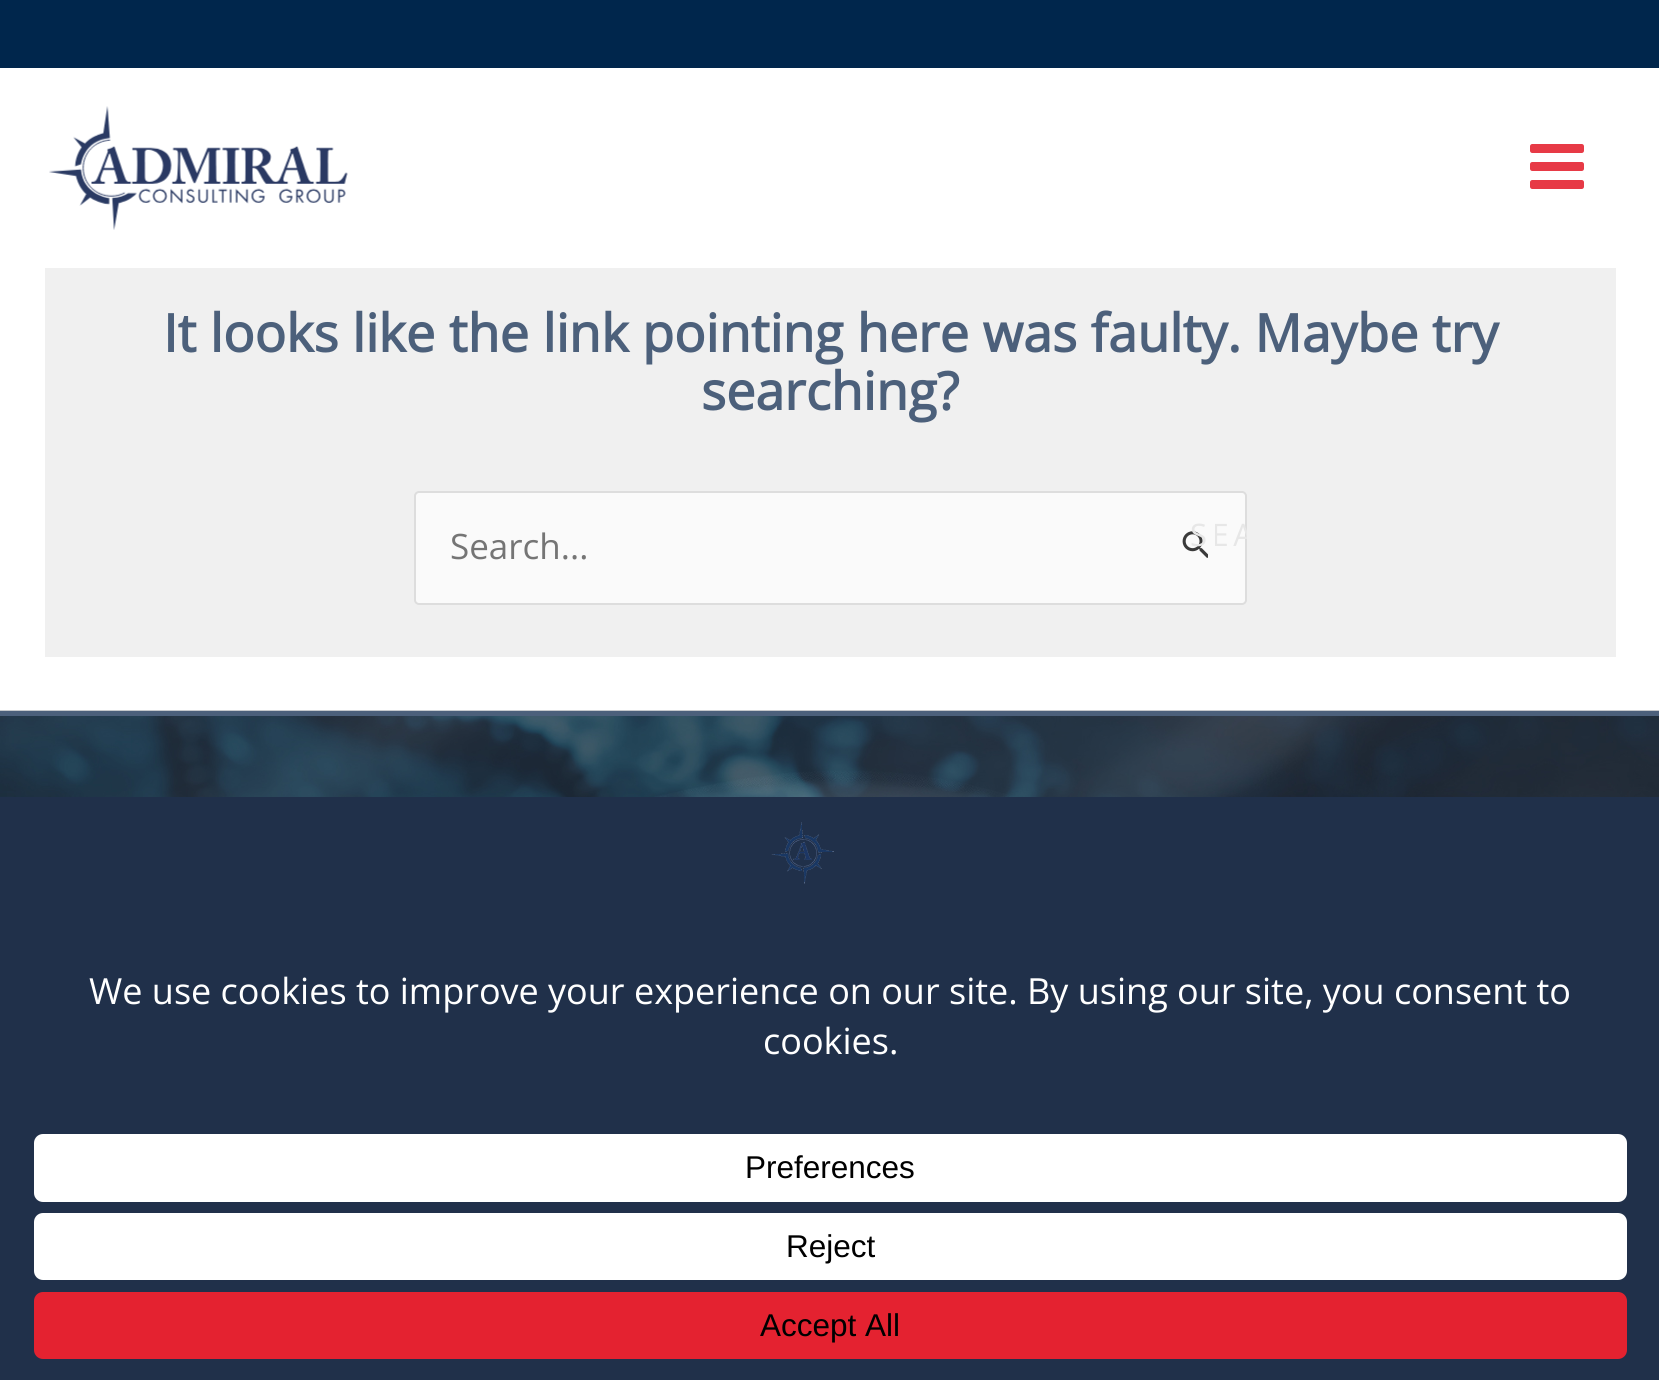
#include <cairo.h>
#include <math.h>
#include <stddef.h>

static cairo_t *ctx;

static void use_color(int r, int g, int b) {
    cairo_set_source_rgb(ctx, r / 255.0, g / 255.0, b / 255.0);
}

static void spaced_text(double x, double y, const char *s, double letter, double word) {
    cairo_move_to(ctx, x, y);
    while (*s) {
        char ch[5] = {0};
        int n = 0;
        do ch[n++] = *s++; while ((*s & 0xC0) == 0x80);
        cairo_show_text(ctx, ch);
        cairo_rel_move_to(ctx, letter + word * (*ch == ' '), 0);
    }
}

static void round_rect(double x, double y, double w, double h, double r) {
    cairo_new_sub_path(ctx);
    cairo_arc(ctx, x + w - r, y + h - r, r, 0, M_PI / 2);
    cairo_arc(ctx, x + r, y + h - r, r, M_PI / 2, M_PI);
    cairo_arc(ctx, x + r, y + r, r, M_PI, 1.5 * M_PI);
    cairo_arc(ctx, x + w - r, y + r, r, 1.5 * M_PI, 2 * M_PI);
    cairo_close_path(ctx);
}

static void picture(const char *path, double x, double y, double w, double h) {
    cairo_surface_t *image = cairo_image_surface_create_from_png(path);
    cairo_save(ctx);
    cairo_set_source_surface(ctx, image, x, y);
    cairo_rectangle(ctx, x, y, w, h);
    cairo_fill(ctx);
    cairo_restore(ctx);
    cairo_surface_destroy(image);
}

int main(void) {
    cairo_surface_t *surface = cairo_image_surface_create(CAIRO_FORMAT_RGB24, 1659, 1380);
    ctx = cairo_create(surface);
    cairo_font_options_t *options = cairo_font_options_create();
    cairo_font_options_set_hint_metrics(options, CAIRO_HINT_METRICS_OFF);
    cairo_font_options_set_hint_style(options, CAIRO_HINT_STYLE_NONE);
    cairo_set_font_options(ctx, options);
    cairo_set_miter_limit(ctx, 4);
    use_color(255, 255, 255);
    cairo_paint(ctx);
    use_color(0, 38, 76);
    cairo_rectangle(ctx, 0, 0, 1659, 68);
    cairo_fill(ctx);
    picture("img1.png", 49, 106, 299, 124);
    picture("img2.png", 1530, 144, 54, 45);
    use_color(240, 240, 240);
    cairo_rectangle(ctx, 45, 268, 1571, 389);
    cairo_fill(ctx);
    cairo_select_font_face(ctx, "Open Sans", CAIRO_FONT_SLANT_NORMAL, CAIRO_FONT_WEIGHT_BOLD);
    cairo_set_font_size(ctx, 52.3);
    use_color(76, 96, 123);
    cairo_move_to(ctx, 163, 352);
    cairo_show_text(ctx, "It looks like the link pointing here was faulty. Maybe try");
    cairo_move_to(ctx, 701, 410);
    cairo_show_text(ctx, "searching?");
    use_color(250, 250, 250);
    round_rect(415, 492, 831, 112, 4);
    cairo_fill_preserve(ctx);
    use_color(221, 221, 221);
    cairo_stroke(ctx);
    cairo_select_font_face(ctx, "Open Sans", CAIRO_FONT_SLANT_NORMAL, CAIRO_FONT_WEIGHT_NORMAL);
    cairo_set_font_size(ctx, 35);
    use_color(117, 117, 117);
    cairo_move_to(ctx, 450, 559);
    cairo_show_text(ctx, "Search...");
    picture("img3.png", 1182, 531, 26, 27);
    cairo_save(ctx);
    round_rect(1145, 491, 102, 87, 5);
    cairo_clip(ctx);
    cairo_set_font_size(ctx, 31);
    use_color(231, 231, 231);
    spaced_text(1190, 546, "SEA", 4.5, 0);
    cairo_restore(ctx);
    picture("img4.png", 0, 710, 1659, 87);
    use_color(76, 96, 123);
    cairo_rectangle(ctx, 0, 711, 1659, 5);
    cairo_fill(ctx);
    use_color(32, 48, 74);
    cairo_rectangle(ctx, 0, 797, 1659, 583);
    cairo_fill(ctx);
    picture("img5.png", 771, 822, 63, 62);
    cairo_set_font_size(ctx, 36);
    use_color(255, 255, 255);
    cairo_move_to(ctx, 89, 1004);
    cairo_show_text(ctx, "We use cookies to improve your experience on our site. By using our site, you consent to");
    cairo_move_to(ctx, 763, 1054);
    cairo_show_text(ctx, "cookies.");
    round_rect(34, 1134, 1593, 68, 9);
    cairo_fill(ctx);
    cairo_select_font_face(ctx, "Liberation Sans", CAIRO_FONT_SLANT_NORMAL, CAIRO_FONT_WEIGHT_NORMAL);
    cairo_set_font_size(ctx, 31.5);
    use_color(0, 0, 0);
    cairo_move_to(ctx, 745, 1178);
    cairo_show_text(ctx, "Preferences");
    use_color(255, 255, 255);
    round_rect(34, 1213, 1593, 67, 9);
    cairo_fill(ctx);
    use_color(0, 0, 0);
    cairo_move_to(ctx, 786, 1257);
    cairo_show_text(ctx, "Reject");
    use_color(228, 34, 48);
    round_rect(34, 1292, 1593, 67, 9);
    cairo_fill(ctx);
    use_color(0, 0, 0);
    cairo_move_to(ctx, 760, 1336);
    cairo_show_text(ctx, "Accept All");
    cairo_surface_write_to_png(surface, "result.png");
    cairo_font_options_destroy(options);
    cairo_destroy(ctx);
    cairo_surface_destroy(surface);
    return 0;
}
